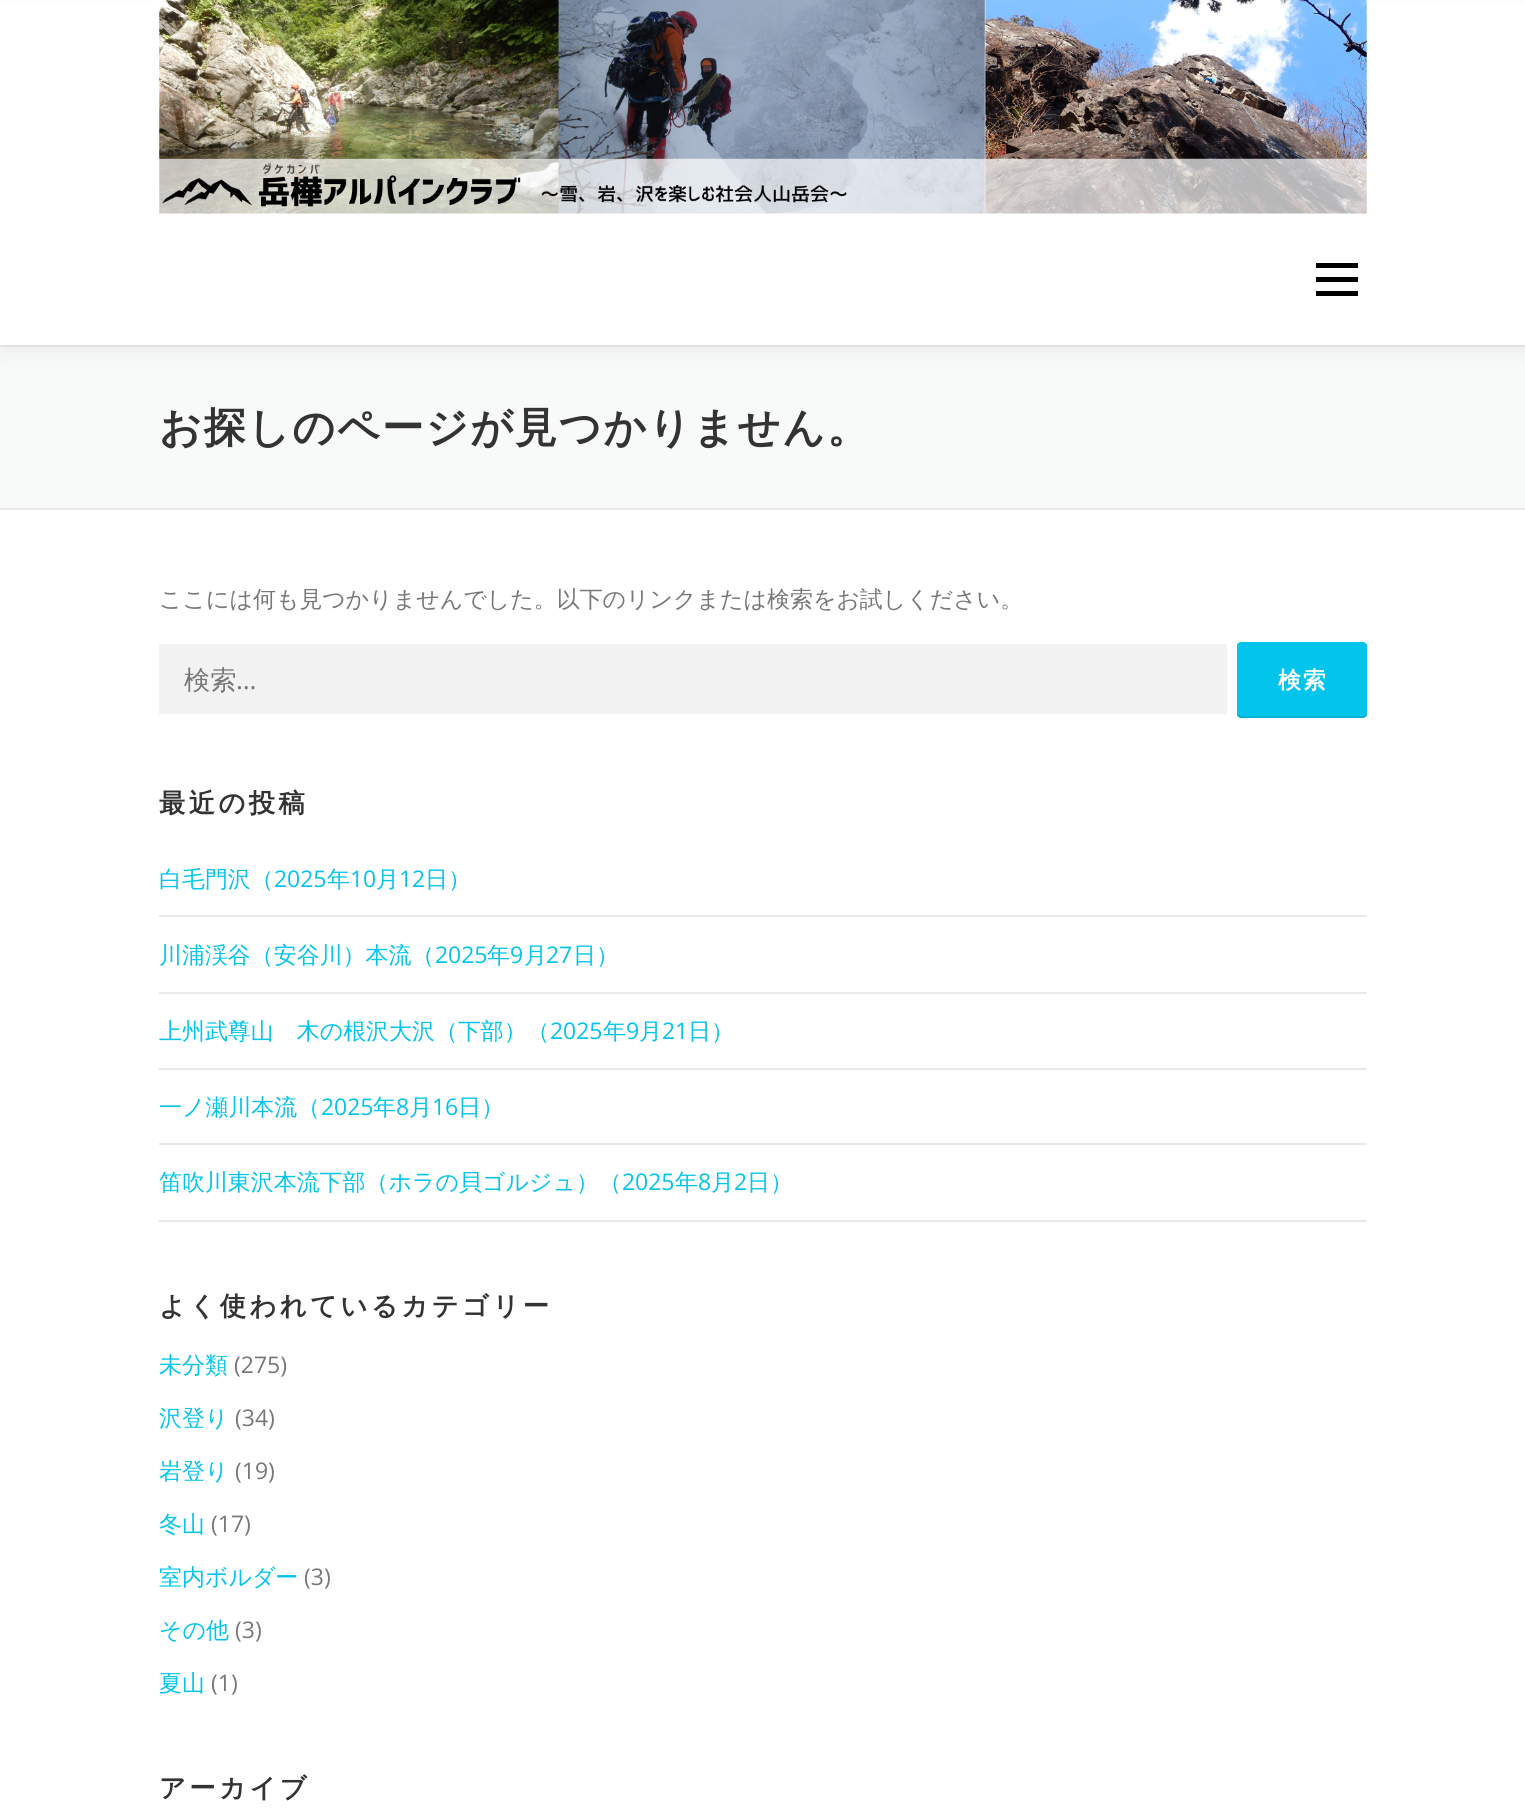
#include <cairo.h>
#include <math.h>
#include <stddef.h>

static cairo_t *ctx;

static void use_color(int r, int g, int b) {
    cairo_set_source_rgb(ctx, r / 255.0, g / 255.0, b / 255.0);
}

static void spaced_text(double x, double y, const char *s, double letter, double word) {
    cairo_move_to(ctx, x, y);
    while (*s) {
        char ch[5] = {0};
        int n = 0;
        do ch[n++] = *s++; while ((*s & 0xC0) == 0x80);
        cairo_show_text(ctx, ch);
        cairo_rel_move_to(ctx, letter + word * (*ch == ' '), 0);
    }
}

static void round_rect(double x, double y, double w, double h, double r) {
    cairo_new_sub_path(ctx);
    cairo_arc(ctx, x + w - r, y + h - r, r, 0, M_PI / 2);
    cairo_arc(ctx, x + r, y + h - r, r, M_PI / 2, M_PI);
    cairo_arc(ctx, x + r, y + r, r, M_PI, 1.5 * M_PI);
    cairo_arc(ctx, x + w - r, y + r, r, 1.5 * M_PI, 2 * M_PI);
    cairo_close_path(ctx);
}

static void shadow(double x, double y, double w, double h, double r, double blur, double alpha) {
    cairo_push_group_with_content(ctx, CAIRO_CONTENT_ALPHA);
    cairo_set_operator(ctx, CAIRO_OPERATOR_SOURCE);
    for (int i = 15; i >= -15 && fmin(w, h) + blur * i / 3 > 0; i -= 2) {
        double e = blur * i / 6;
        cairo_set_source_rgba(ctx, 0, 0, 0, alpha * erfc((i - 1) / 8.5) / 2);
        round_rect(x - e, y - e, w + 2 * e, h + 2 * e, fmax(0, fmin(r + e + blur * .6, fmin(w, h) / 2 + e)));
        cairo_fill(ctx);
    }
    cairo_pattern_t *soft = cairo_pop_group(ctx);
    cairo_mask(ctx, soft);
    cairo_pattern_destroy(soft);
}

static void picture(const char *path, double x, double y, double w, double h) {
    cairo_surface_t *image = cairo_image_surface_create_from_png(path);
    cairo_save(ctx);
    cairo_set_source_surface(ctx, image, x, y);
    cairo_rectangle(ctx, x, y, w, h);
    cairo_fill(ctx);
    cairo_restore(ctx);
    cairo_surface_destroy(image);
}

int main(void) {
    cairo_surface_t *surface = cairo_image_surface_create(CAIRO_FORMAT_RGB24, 1525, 1810);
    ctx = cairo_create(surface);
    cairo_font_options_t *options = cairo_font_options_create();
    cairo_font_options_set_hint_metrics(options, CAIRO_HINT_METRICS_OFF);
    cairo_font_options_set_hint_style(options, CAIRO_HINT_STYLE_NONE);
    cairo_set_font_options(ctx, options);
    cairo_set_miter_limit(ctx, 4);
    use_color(255, 255, 255);
    cairo_paint(ctx);
    use_color(248, 249, 249);
    cairo_rectangle(ctx, 0, 347, 1525, 161);
    cairo_fill(ctx);
    use_color(233, 233, 233);
    cairo_rectangle(ctx, 0, 345, 1525, 2);
    cairo_fill(ctx);
    use_color(50, 50, 50);
    shadow(0, 9, 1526, 345, 0, 9, 0.06);
    use_color(255, 255, 255);
    cairo_rectangle(ctx, 0, 2, 1525, 343);
    cairo_fill(ctx);
    picture("img1.png", 159, 0, 1208, 214);
    use_color(0, 0, 0);
    cairo_rectangle(ctx, 1316, 277, 42, 5);
    cairo_fill(ctx);
    cairo_rectangle(ctx, 1316, 263, 42, 5);
    cairo_fill(ctx);
    cairo_rectangle(ctx, 1316, 291, 42, 5);
    cairo_fill(ctx);
    use_color(233, 233, 233);
    cairo_rectangle(ctx, 0, 508, 1525, 2);
    cairo_fill(ctx);
    cairo_select_font_face(ctx, "WenQuanYi Zen Hei", CAIRO_FONT_SLANT_NORMAL, CAIRO_FONT_WEIGHT_BOLD);
    cairo_set_font_size(ctx, 42);
    use_color(51, 51, 51);
    spaced_text(159, 442, "お探しのページが見つかりません。", 1.75, 0);
    cairo_select_font_face(ctx, "WenQuanYi Zen Hei Medium", CAIRO_FONT_SLANT_NORMAL, CAIRO_FONT_WEIGHT_NORMAL);
    cairo_set_font_size(ctx, 22.95);
    use_color(119, 119, 119);
    cairo_move_to(ctx, 159, 607);
    cairo_show_text(ctx, "ここには何も見つかりませんでした。以下のリンクまたは検索をお試しください。");
    use_color(242, 242, 242);
    cairo_rectangle(ctx, 159, 644, 1068, 70);
    cairo_fill(ctx);
    cairo_set_font_size(ctx, 26.25);
    use_color(119, 119, 119);
    cairo_move_to(ctx, 184, 689);
    cairo_show_text(ctx, "検索");
    cairo_select_font_face(ctx, "Open Sans", CAIRO_FONT_SLANT_NORMAL, CAIRO_FONT_WEIGHT_NORMAL);
    cairo_move_to(ctx, 236, 689);
    cairo_show_text(ctx, "…");
    use_color(3, 196, 235);
    round_rect(1237, 642, 130, 76, 4);
    cairo_fill(ctx);
    cairo_set_source_rgba(ctx, 0, 0, 0, 0.1);
    cairo_new_path(ctx);
    cairo_move_to(ctx, 1237, 712);
    cairo_line_to(ctx, 1237, 714);
    cairo_curve_to(ctx, 1237, 716, 1239, 718, 1241, 718);
    cairo_line_to(ctx, 1363, 718);
    cairo_curve_to(ctx, 1365, 718, 1367, 716, 1367, 714);
    cairo_line_to(ctx, 1367, 712);
    cairo_curve_to(ctx, 1367, 714, 1365, 716, 1363, 716);
    cairo_line_to(ctx, 1241, 716);
    cairo_curve_to(ctx, 1239, 716, 1237, 714, 1237, 712);
    cairo_close_path(ctx);
    cairo_fill(ctx);
    cairo_select_font_face(ctx, "WenQuanYi Zen Hei", CAIRO_FONT_SLANT_NORMAL, CAIRO_FONT_WEIGHT_BOLD);
    cairo_set_font_size(ctx, 23);
    use_color(255, 255, 255);
    spaced_text(1278, 688, "検索", 1.75, 0);
    cairo_set_font_size(ctx, 26.25);
    use_color(51, 51, 51);
    spaced_text(159, 812, "最近の投稿", 3.5, 0);
    use_color(233, 233, 233);
    cairo_rectangle(ctx, 159, 915, 1208, 2);
    cairo_fill(ctx);
    cairo_select_font_face(ctx, "WenQuanYi Zen Hei Medium", CAIRO_FONT_SLANT_NORMAL, CAIRO_FONT_WEIGHT_NORMAL);
    cairo_set_font_size(ctx, 22.95);
    use_color(3, 196, 235);
    cairo_move_to(ctx, 159, 887);
    cairo_show_text(ctx, "白毛門沢（");
    cairo_select_font_face(ctx, "Open Sans", CAIRO_FONT_SLANT_NORMAL, CAIRO_FONT_WEIGHT_NORMAL);
    cairo_move_to(ctx, 274, 887);
    cairo_show_text(ctx, "2025");
    cairo_select_font_face(ctx, "WenQuanYi Zen Hei Medium", CAIRO_FONT_SLANT_NORMAL, CAIRO_FONT_WEIGHT_NORMAL);
    cairo_move_to(ctx, 327, 887);
    cairo_show_text(ctx, "年");
    cairo_select_font_face(ctx, "Open Sans", CAIRO_FONT_SLANT_NORMAL, CAIRO_FONT_WEIGHT_NORMAL);
    cairo_move_to(ctx, 350, 887);
    cairo_show_text(ctx, "10");
    cairo_select_font_face(ctx, "WenQuanYi Zen Hei Medium", CAIRO_FONT_SLANT_NORMAL, CAIRO_FONT_WEIGHT_NORMAL);
    cairo_move_to(ctx, 376, 887);
    cairo_show_text(ctx, "月");
    cairo_select_font_face(ctx, "Open Sans", CAIRO_FONT_SLANT_NORMAL, CAIRO_FONT_WEIGHT_NORMAL);
    cairo_move_to(ctx, 399, 887);
    cairo_show_text(ctx, "12");
    cairo_select_font_face(ctx, "WenQuanYi Zen Hei Medium", CAIRO_FONT_SLANT_NORMAL, CAIRO_FONT_WEIGHT_NORMAL);
    cairo_move_to(ctx, 425, 887);
    cairo_show_text(ctx, "日）");
    use_color(233, 233, 233);
    cairo_rectangle(ctx, 159, 992, 1208, 2);
    cairo_fill(ctx);
    use_color(3, 196, 235);
    cairo_move_to(ctx, 159, 963);
    cairo_show_text(ctx, "川浦渓谷（安谷川）本流（");
    cairo_select_font_face(ctx, "Open Sans", CAIRO_FONT_SLANT_NORMAL, CAIRO_FONT_WEIGHT_NORMAL);
    cairo_move_to(ctx, 435, 963);
    cairo_show_text(ctx, "2025");
    cairo_select_font_face(ctx, "WenQuanYi Zen Hei Medium", CAIRO_FONT_SLANT_NORMAL, CAIRO_FONT_WEIGHT_NORMAL);
    cairo_move_to(ctx, 487, 963);
    cairo_show_text(ctx, "年");
    cairo_select_font_face(ctx, "Open Sans", CAIRO_FONT_SLANT_NORMAL, CAIRO_FONT_WEIGHT_NORMAL);
    cairo_move_to(ctx, 510, 963);
    cairo_show_text(ctx, "9");
    cairo_select_font_face(ctx, "WenQuanYi Zen Hei Medium", CAIRO_FONT_SLANT_NORMAL, CAIRO_FONT_WEIGHT_NORMAL);
    cairo_move_to(ctx, 524, 963);
    cairo_show_text(ctx, "月");
    cairo_select_font_face(ctx, "Open Sans", CAIRO_FONT_SLANT_NORMAL, CAIRO_FONT_WEIGHT_NORMAL);
    cairo_move_to(ctx, 546, 963);
    cairo_show_text(ctx, "27");
    cairo_select_font_face(ctx, "WenQuanYi Zen Hei Medium", CAIRO_FONT_SLANT_NORMAL, CAIRO_FONT_WEIGHT_NORMAL);
    cairo_move_to(ctx, 573, 963);
    cairo_show_text(ctx, "日）");
    use_color(233, 233, 233);
    cairo_rectangle(ctx, 159, 1068, 1208, 2);
    cairo_fill(ctx);
    use_color(3, 196, 235);
    cairo_move_to(ctx, 159, 1039);
    cairo_show_text(ctx, "上州武尊山　木の根沢大沢（下部）（");
    cairo_select_font_face(ctx, "Open Sans", CAIRO_FONT_SLANT_NORMAL, CAIRO_FONT_WEIGHT_NORMAL);
    cairo_move_to(ctx, 550, 1039);
    cairo_show_text(ctx, "2025");
    cairo_select_font_face(ctx, "WenQuanYi Zen Hei Medium", CAIRO_FONT_SLANT_NORMAL, CAIRO_FONT_WEIGHT_NORMAL);
    cairo_move_to(ctx, 603, 1039);
    cairo_show_text(ctx, "年");
    cairo_select_font_face(ctx, "Open Sans", CAIRO_FONT_SLANT_NORMAL, CAIRO_FONT_WEIGHT_NORMAL);
    cairo_move_to(ctx, 626, 1039);
    cairo_show_text(ctx, "9");
    cairo_select_font_face(ctx, "WenQuanYi Zen Hei Medium", CAIRO_FONT_SLANT_NORMAL, CAIRO_FONT_WEIGHT_NORMAL);
    cairo_move_to(ctx, 639, 1039);
    cairo_show_text(ctx, "月");
    cairo_select_font_face(ctx, "Open Sans", CAIRO_FONT_SLANT_NORMAL, CAIRO_FONT_WEIGHT_NORMAL);
    cairo_move_to(ctx, 662, 1039);
    cairo_show_text(ctx, "21");
    cairo_select_font_face(ctx, "WenQuanYi Zen Hei Medium", CAIRO_FONT_SLANT_NORMAL, CAIRO_FONT_WEIGHT_NORMAL);
    cairo_move_to(ctx, 688, 1039);
    cairo_show_text(ctx, "日）");
    use_color(233, 233, 233);
    cairo_rectangle(ctx, 159, 1143, 1208, 2);
    cairo_fill(ctx);
    use_color(3, 196, 235);
    cairo_move_to(ctx, 159, 1115);
    cairo_show_text(ctx, "一ノ瀬川本流（");
    cairo_select_font_face(ctx, "Open Sans", CAIRO_FONT_SLANT_NORMAL, CAIRO_FONT_WEIGHT_NORMAL);
    cairo_move_to(ctx, 321, 1115);
    cairo_show_text(ctx, "2025");
    cairo_select_font_face(ctx, "WenQuanYi Zen Hei Medium", CAIRO_FONT_SLANT_NORMAL, CAIRO_FONT_WEIGHT_NORMAL);
    cairo_move_to(ctx, 373, 1115);
    cairo_show_text(ctx, "年");
    cairo_select_font_face(ctx, "Open Sans", CAIRO_FONT_SLANT_NORMAL, CAIRO_FONT_WEIGHT_NORMAL);
    cairo_move_to(ctx, 396, 1115);
    cairo_show_text(ctx, "8");
    cairo_select_font_face(ctx, "WenQuanYi Zen Hei Medium", CAIRO_FONT_SLANT_NORMAL, CAIRO_FONT_WEIGHT_NORMAL);
    cairo_move_to(ctx, 409, 1115);
    cairo_show_text(ctx, "月");
    cairo_select_font_face(ctx, "Open Sans", CAIRO_FONT_SLANT_NORMAL, CAIRO_FONT_WEIGHT_NORMAL);
    cairo_move_to(ctx, 432, 1115);
    cairo_show_text(ctx, "16");
    cairo_select_font_face(ctx, "WenQuanYi Zen Hei Medium", CAIRO_FONT_SLANT_NORMAL, CAIRO_FONT_WEIGHT_NORMAL);
    cairo_move_to(ctx, 458, 1115);
    cairo_show_text(ctx, "日）");
    use_color(233, 233, 233);
    cairo_rectangle(ctx, 159, 1220, 1208, 2);
    cairo_fill(ctx);
    use_color(3, 196, 235);
    cairo_move_to(ctx, 159, 1190);
    cairo_show_text(ctx, "笛吹川東沢本流下部（ホラの貝ゴルジュ）（");
    cairo_select_font_face(ctx, "Open Sans", CAIRO_FONT_SLANT_NORMAL, CAIRO_FONT_WEIGHT_NORMAL);
    cairo_move_to(ctx, 622, 1190);
    cairo_show_text(ctx, "2025");
    cairo_select_font_face(ctx, "WenQuanYi Zen Hei Medium", CAIRO_FONT_SLANT_NORMAL, CAIRO_FONT_WEIGHT_NORMAL);
    cairo_move_to(ctx, 675, 1190);
    cairo_show_text(ctx, "年");
    cairo_select_font_face(ctx, "Open Sans", CAIRO_FONT_SLANT_NORMAL, CAIRO_FONT_WEIGHT_NORMAL);
    cairo_move_to(ctx, 698, 1190);
    cairo_show_text(ctx, "8");
    cairo_select_font_face(ctx, "WenQuanYi Zen Hei Medium", CAIRO_FONT_SLANT_NORMAL, CAIRO_FONT_WEIGHT_NORMAL);
    cairo_move_to(ctx, 711, 1190);
    cairo_show_text(ctx, "月");
    cairo_select_font_face(ctx, "Open Sans", CAIRO_FONT_SLANT_NORMAL, CAIRO_FONT_WEIGHT_NORMAL);
    cairo_move_to(ctx, 734, 1190);
    cairo_show_text(ctx, "2");
    cairo_select_font_face(ctx, "WenQuanYi Zen Hei Medium", CAIRO_FONT_SLANT_NORMAL, CAIRO_FONT_WEIGHT_NORMAL);
    cairo_move_to(ctx, 747, 1190);
    cairo_show_text(ctx, "日）");
    cairo_select_font_face(ctx, "WenQuanYi Zen Hei", CAIRO_FONT_SLANT_NORMAL, CAIRO_FONT_WEIGHT_BOLD);
    cairo_set_font_size(ctx, 26.25);
    use_color(51, 51, 51);
    spaced_text(159, 1315, "よく使われているカテゴリー", 3.5, 0);
    cairo_select_font_face(ctx, "WenQuanYi Zen Hei Medium", CAIRO_FONT_SLANT_NORMAL, CAIRO_FONT_WEIGHT_NORMAL);
    cairo_set_font_size(ctx, 22.95);
    use_color(3, 196, 235);
    cairo_move_to(ctx, 159, 1373);
    cairo_show_text(ctx, "未分類");
    cairo_select_font_face(ctx, "Open Sans", CAIRO_FONT_SLANT_NORMAL, CAIRO_FONT_WEIGHT_NORMAL);
    use_color(119, 119, 119);
    cairo_move_to(ctx, 234, 1373);
    cairo_show_text(ctx, "(275)");
    cairo_select_font_face(ctx, "WenQuanYi Zen Hei Medium", CAIRO_FONT_SLANT_NORMAL, CAIRO_FONT_WEIGHT_NORMAL);
    use_color(3, 196, 235);
    cairo_move_to(ctx, 159, 1426);
    cairo_show_text(ctx, "沢登り");
    cairo_select_font_face(ctx, "Open Sans", CAIRO_FONT_SLANT_NORMAL, CAIRO_FONT_WEIGHT_NORMAL);
    use_color(119, 119, 119);
    cairo_move_to(ctx, 235, 1426);
    cairo_show_text(ctx, "(34)");
    cairo_select_font_face(ctx, "WenQuanYi Zen Hei Medium", CAIRO_FONT_SLANT_NORMAL, CAIRO_FONT_WEIGHT_NORMAL);
    use_color(3, 196, 235);
    cairo_move_to(ctx, 159, 1479);
    cairo_show_text(ctx, "岩登り");
    cairo_select_font_face(ctx, "Open Sans", CAIRO_FONT_SLANT_NORMAL, CAIRO_FONT_WEIGHT_NORMAL);
    use_color(119, 119, 119);
    cairo_move_to(ctx, 235, 1479);
    cairo_show_text(ctx, "(19)");
    cairo_select_font_face(ctx, "WenQuanYi Zen Hei Medium", CAIRO_FONT_SLANT_NORMAL, CAIRO_FONT_WEIGHT_NORMAL);
    use_color(3, 196, 235);
    cairo_move_to(ctx, 159, 1532);
    cairo_show_text(ctx, "冬山");
    cairo_select_font_face(ctx, "Open Sans", CAIRO_FONT_SLANT_NORMAL, CAIRO_FONT_WEIGHT_NORMAL);
    use_color(119, 119, 119);
    cairo_move_to(ctx, 211, 1532);
    cairo_show_text(ctx, "(17)");
    cairo_select_font_face(ctx, "WenQuanYi Zen Hei Medium", CAIRO_FONT_SLANT_NORMAL, CAIRO_FONT_WEIGHT_NORMAL);
    use_color(3, 196, 235);
    cairo_move_to(ctx, 159, 1585);
    cairo_show_text(ctx, "室内ボルダー");
    cairo_select_font_face(ctx, "Open Sans", CAIRO_FONT_SLANT_NORMAL, CAIRO_FONT_WEIGHT_NORMAL);
    use_color(119, 119, 119);
    cairo_move_to(ctx, 304, 1585);
    cairo_show_text(ctx, "(3)");
    cairo_select_font_face(ctx, "WenQuanYi Zen Hei Medium", CAIRO_FONT_SLANT_NORMAL, CAIRO_FONT_WEIGHT_NORMAL);
    use_color(3, 196, 235);
    cairo_move_to(ctx, 159, 1638);
    cairo_show_text(ctx, "その他");
    cairo_select_font_face(ctx, "Open Sans", CAIRO_FONT_SLANT_NORMAL, CAIRO_FONT_WEIGHT_NORMAL);
    use_color(119, 119, 119);
    cairo_move_to(ctx, 235, 1638);
    cairo_show_text(ctx, "(3)");
    cairo_select_font_face(ctx, "WenQuanYi Zen Hei Medium", CAIRO_FONT_SLANT_NORMAL, CAIRO_FONT_WEIGHT_NORMAL);
    use_color(3, 196, 235);
    cairo_move_to(ctx, 159, 1691);
    cairo_show_text(ctx, "夏山");
    cairo_select_font_face(ctx, "Open Sans", CAIRO_FONT_SLANT_NORMAL, CAIRO_FONT_WEIGHT_NORMAL);
    use_color(119, 119, 119);
    cairo_move_to(ctx, 211, 1691);
    cairo_show_text(ctx, "(1)");
    cairo_select_font_face(ctx, "WenQuanYi Zen Hei", CAIRO_FONT_SLANT_NORMAL, CAIRO_FONT_WEIGHT_BOLD);
    cairo_set_font_size(ctx, 26.25);
    use_color(51, 51, 51);
    spaced_text(159, 1797, "アーカイブ", 3.5, 0);
    cairo_surface_write_to_png(surface, "result.png");
    cairo_font_options_destroy(options);
    cairo_destroy(ctx);
    cairo_surface_destroy(surface);
    return 0;
}
